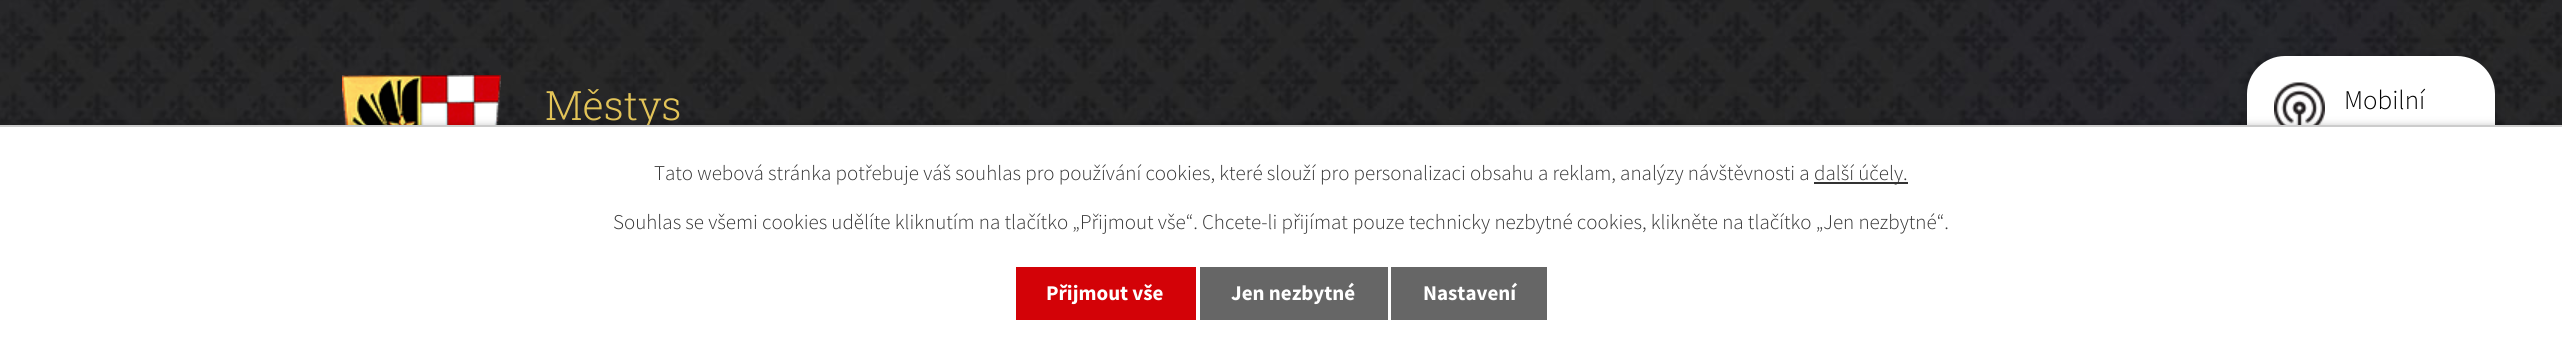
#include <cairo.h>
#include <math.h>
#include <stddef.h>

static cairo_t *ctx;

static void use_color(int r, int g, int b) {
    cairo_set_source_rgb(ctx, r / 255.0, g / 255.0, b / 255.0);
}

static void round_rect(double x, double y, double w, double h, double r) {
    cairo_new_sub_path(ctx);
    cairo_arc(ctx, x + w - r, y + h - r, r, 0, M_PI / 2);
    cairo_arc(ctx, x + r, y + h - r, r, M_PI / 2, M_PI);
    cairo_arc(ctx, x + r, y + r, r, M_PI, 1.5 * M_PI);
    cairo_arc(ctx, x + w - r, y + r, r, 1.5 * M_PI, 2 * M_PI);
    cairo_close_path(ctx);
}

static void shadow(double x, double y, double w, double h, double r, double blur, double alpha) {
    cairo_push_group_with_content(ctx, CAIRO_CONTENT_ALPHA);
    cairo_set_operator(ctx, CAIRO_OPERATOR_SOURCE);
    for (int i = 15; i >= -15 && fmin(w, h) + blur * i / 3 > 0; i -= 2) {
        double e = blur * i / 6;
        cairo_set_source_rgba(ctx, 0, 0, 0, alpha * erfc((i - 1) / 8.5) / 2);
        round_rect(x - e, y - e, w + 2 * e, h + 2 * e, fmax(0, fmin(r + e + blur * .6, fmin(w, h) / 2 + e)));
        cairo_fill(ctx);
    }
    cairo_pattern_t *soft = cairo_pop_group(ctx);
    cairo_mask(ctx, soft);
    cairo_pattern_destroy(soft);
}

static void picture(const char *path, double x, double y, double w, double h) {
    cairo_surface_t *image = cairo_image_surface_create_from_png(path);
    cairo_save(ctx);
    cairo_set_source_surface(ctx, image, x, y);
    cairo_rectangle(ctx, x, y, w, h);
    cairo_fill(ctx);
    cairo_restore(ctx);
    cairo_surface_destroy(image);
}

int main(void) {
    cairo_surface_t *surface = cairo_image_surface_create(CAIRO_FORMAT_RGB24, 2562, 348);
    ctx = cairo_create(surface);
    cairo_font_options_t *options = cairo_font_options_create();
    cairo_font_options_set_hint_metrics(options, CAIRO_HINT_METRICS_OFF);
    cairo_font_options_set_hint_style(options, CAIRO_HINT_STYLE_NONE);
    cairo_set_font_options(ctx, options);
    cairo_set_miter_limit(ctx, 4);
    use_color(255, 255, 255);
    cairo_paint(ctx);
    picture("img1.png", 0, 0, 2562, 125);
    picture("img2.png", 342, 75, 159, 50);
    cairo_select_font_face(ctx, "Roboto Slab Light", CAIRO_FONT_SLANT_NORMAL, CAIRO_FONT_WEIGHT_NORMAL);
    cairo_set_font_size(ctx, 40.5);
    use_color(227, 196, 88);
    cairo_move_to(ctx, 545, 120);
    cairo_show_text(ctx, "Městys");
    use_color(0, 0, 0);
    shadow(2247, 60, 248, 225, 38, 7.5, 0.2);
    use_color(255, 255, 255);
    round_rect(2247, 56, 248, 225, 38);
    cairo_fill(ctx);
    picture("img3.png", 2274, 82, 51, 43);
    cairo_select_font_face(ctx, "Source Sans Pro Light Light", CAIRO_FONT_SLANT_NORMAL, CAIRO_FONT_WEIGHT_NORMAL);
    cairo_set_font_size(ctx, 27);
    use_color(0, 0, 0);
    cairo_move_to(ctx, 2344, 109);
    cairo_show_text(ctx, "Mobilní");
    use_color(0, 0, 0);
    shadow(0, 125, 2562, 223, 0, 4, 0.2);
    use_color(255, 255, 255);
    cairo_rectangle(ctx, 0, 127, 2562, 221);
    cairo_fill(ctx);
    use_color(204, 204, 204);
    cairo_rectangle(ctx, 0, 125, 2562, 2);
    cairo_fill(ctx);
    cairo_set_font_size(ctx, 21);
    use_color(51, 51, 51);
    cairo_move_to(ctx, 654, 180);
    cairo_show_text(ctx, "Tato webová stránka potřebuje váš souhlas pro používání cookies, které slouží pro personalizaci obsahu a reklam, analýzy návštěvnosti a");
    cairo_rectangle(ctx, 1814, 182, 94, 2);
    cairo_fill(ctx);
    cairo_move_to(ctx, 1814, 180);
    cairo_show_text(ctx, "další účely.");
    cairo_move_to(ctx, 613, 229);
    cairo_show_text(ctx, "Souhlas se všemi cookies udělíte kliknutím na tlačítko „Přijmout vše“. Chcete-li přijímat pouze technicky nezbytné cookies, klikněte na tlačítko „Jen nezbytné“.");
    use_color(211, 2, 7);
    cairo_rectangle(ctx, 1016, 267, 180, 53);
    cairo_fill(ctx);
    cairo_select_font_face(ctx, "Source Sans Pro", CAIRO_FONT_SLANT_NORMAL, CAIRO_FONT_WEIGHT_BOLD);
    use_color(255, 255, 255);
    cairo_move_to(ctx, 1046, 300);
    cairo_show_text(ctx, "Přijmout vše");
    use_color(102, 102, 102);
    cairo_rectangle(ctx, 1200, 267, 188, 53);
    cairo_fill(ctx);
    use_color(255, 255, 255);
    cairo_move_to(ctx, 1231, 300);
    cairo_show_text(ctx, "Jen nezbytné");
    use_color(102, 102, 102);
    cairo_rectangle(ctx, 1391, 267, 156, 53);
    cairo_fill(ctx);
    use_color(255, 255, 255);
    cairo_move_to(ctx, 1423, 300);
    cairo_show_text(ctx, "Nastavení");
    cairo_surface_write_to_png(surface, "result.png");
    cairo_font_options_destroy(options);
    cairo_destroy(ctx);
    cairo_surface_destroy(surface);
    return 0;
}
